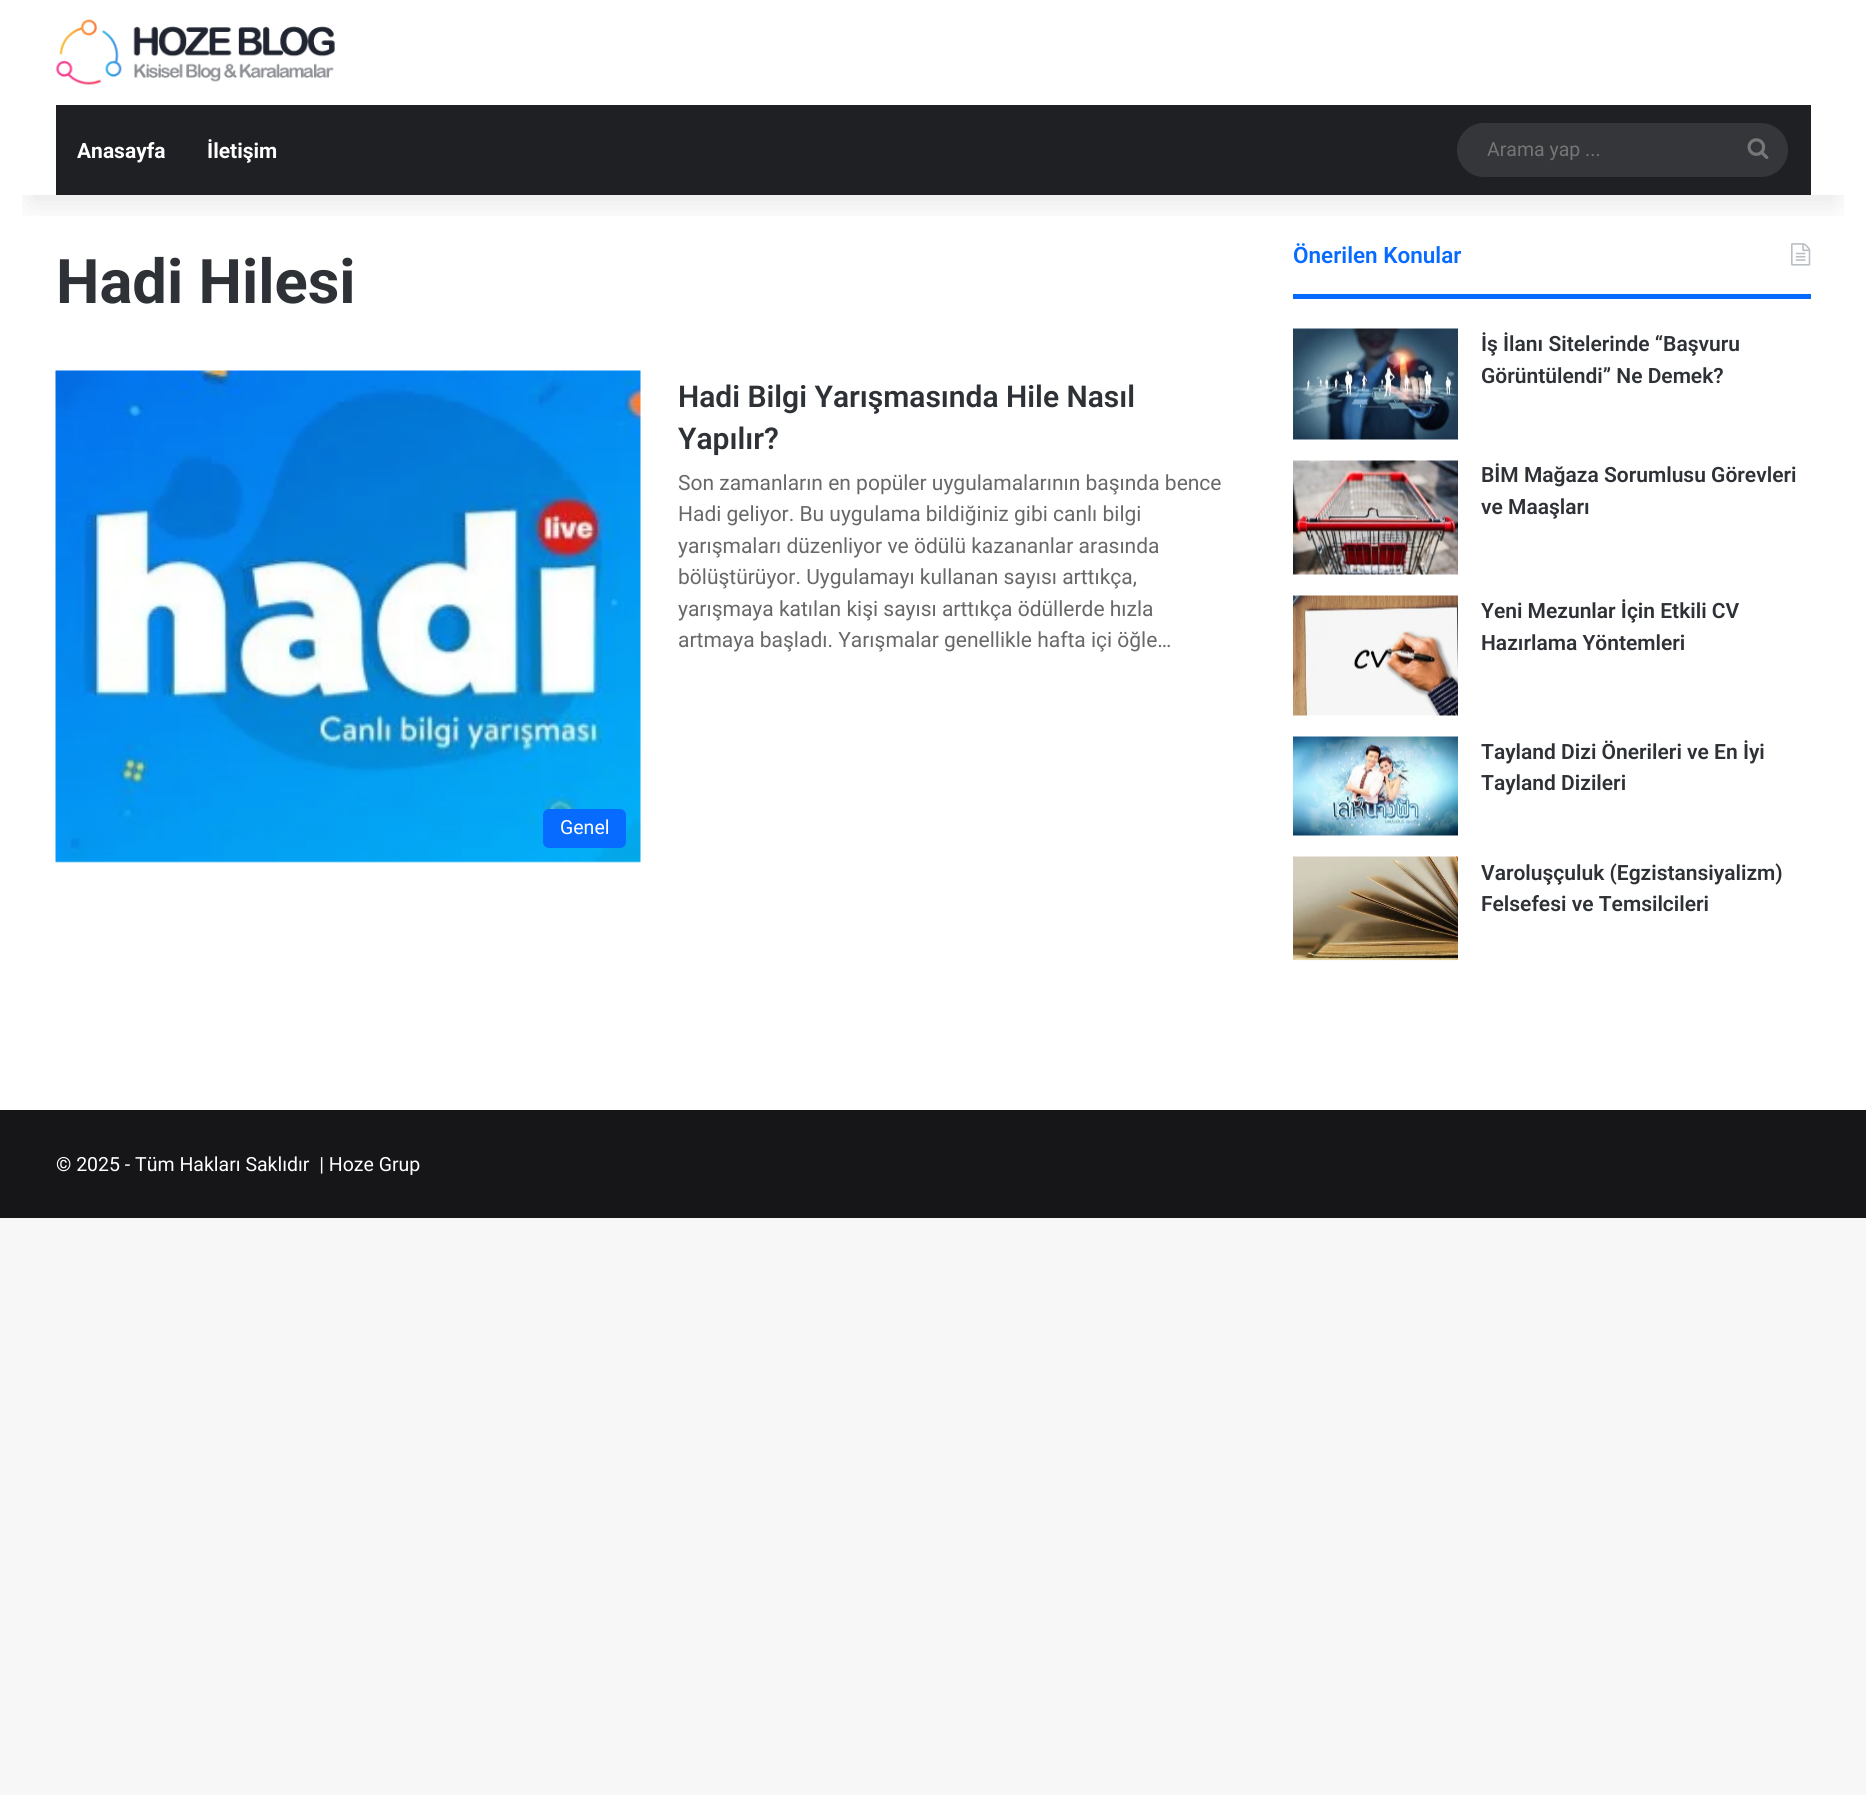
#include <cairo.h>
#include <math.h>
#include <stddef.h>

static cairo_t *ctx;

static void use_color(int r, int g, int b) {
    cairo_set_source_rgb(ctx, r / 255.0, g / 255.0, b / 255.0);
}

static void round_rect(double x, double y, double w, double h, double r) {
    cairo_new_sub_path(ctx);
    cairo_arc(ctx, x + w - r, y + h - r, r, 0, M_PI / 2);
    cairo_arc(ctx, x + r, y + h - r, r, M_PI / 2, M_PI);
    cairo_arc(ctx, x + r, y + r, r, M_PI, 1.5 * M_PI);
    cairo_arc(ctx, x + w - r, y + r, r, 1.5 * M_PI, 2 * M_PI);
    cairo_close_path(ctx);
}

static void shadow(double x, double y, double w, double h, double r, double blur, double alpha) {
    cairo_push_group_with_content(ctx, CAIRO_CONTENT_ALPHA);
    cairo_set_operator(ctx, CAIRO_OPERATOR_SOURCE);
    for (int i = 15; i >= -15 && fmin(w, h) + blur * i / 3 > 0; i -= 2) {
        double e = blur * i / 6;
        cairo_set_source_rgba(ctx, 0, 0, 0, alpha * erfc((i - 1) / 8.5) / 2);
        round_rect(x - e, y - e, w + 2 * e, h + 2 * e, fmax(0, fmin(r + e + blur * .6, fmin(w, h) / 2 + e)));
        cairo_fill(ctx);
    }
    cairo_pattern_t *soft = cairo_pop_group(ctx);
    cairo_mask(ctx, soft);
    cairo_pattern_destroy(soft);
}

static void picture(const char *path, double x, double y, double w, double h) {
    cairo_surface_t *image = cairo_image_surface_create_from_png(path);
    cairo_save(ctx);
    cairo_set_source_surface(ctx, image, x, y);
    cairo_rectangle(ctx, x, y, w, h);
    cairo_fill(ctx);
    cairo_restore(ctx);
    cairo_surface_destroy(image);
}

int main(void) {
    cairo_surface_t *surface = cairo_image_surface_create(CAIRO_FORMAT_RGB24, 1866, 1795);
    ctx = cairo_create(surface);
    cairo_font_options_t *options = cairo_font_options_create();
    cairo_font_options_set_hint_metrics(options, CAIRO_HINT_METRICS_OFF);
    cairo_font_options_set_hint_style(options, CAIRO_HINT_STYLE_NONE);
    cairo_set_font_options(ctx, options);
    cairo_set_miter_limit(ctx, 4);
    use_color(247, 247, 247);
    cairo_paint(ctx);
    use_color(255, 255, 255);
    cairo_rectangle(ctx, 0, 0, 1866, 1110);
    cairo_fill(ctx);
    picture("img4.png", 1791, 243, 20, 23);
    cairo_save(ctx);
    cairo_rectangle(ctx, 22, 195, 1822, 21);
    cairo_clip(ctx);
    use_color(0, 0, 0);
    shadow(30, 68, 1806, 135, 0, 15, 0.1);
    cairo_restore(ctx);
    picture("img1.png", 56, 19, 279, 66);
    use_color(31, 32, 36);
    cairo_rectangle(ctx, 56, 105, 1755, 90);
    cairo_fill(ctx);
    cairo_select_font_face(ctx, "Roboto", CAIRO_FONT_SLANT_NORMAL, CAIRO_FONT_WEIGHT_BOLD);
    cairo_set_font_size(ctx, 21);
    use_color(255, 255, 255);
    cairo_move_to(ctx, 77, 158);
    cairo_show_text(ctx, "Anasayfa");
    cairo_move_to(ctx, 207, 158);
    cairo_show_text(ctx, "İletişim");
    use_color(53, 54, 58);
    round_rect(1457, 123, 331, 54, 27);
    cairo_fill(ctx);
    cairo_select_font_face(ctx, "Roboto", CAIRO_FONT_SLANT_NORMAL, CAIRO_FONT_WEIGHT_NORMAL);
    cairo_set_font_size(ctx, 19.5);
    use_color(117, 117, 117);
    cairo_move_to(ctx, 1487, 156);
    cairo_show_text(ctx, "Arama yap ...");
    picture("img2.png", 1747, 138, 22, 21);
    cairo_select_font_face(ctx, "Roboto", CAIRO_FONT_SLANT_NORMAL, CAIRO_FONT_WEIGHT_BOLD);
    cairo_set_font_size(ctx, 61.5);
    use_color(46, 49, 54);
    cairo_move_to(ctx, 56, 303);
    cairo_show_text(ctx, "Hadi Hilesi");
    cairo_select_font_face(ctx, "Roboto SemiBold", CAIRO_FONT_SLANT_NORMAL, CAIRO_FONT_WEIGHT_NORMAL);
    cairo_set_font_size(ctx, 30);
    cairo_move_to(ctx, 678, 407);
    cairo_show_text(ctx, "Hadi Bilgi Yarışmasında Hile Nasıl");
    cairo_move_to(ctx, 678, 449);
    cairo_show_text(ctx, "Yapılır?");
    cairo_select_font_face(ctx, "Roboto", CAIRO_FONT_SLANT_NORMAL, CAIRO_FONT_WEIGHT_NORMAL);
    cairo_set_font_size(ctx, 21);
    use_color(104, 104, 104);
    cairo_move_to(ctx, 678, 490);
    cairo_show_text(ctx, "Son zamanların en popüler uygulamalarının başında bence");
    cairo_move_to(ctx, 678, 521);
    cairo_show_text(ctx, "Hadi geliyor. Bu uygulama bildiğiniz gibi canlı bilgi");
    cairo_move_to(ctx, 678, 553);
    cairo_show_text(ctx, "yarışmaları düzenliyor ve ödülü kazananlar arasında");
    cairo_move_to(ctx, 678, 584);
    cairo_show_text(ctx, "bölüştürüyor. Uygulamayı kullanan sayısı arttıkça,");
    cairo_move_to(ctx, 678, 616);
    cairo_show_text(ctx, "yarışmaya katılan kişi sayısı arttıkça ödüllerde hızla");
    cairo_move_to(ctx, 678, 647);
    cairo_show_text(ctx, "artmaya başladı. Yarışmalar genellikle hafta içi öğle…");
    picture("img3.png", 55, 370, 586, 493);
    use_color(8, 107, 255);
    round_rect(543, 809, 83, 39, 6);
    cairo_fill(ctx);
    cairo_set_font_size(ctx, 19.5);
    use_color(255, 255, 255);
    cairo_move_to(ctx, 560, 834);
    cairo_show_text(ctx, "Genel");
    use_color(8, 107, 255);
    cairo_rectangle(ctx, 1293, 294, 518, 5);
    cairo_fill(ctx);
    cairo_select_font_face(ctx, "Roboto SemiBold", CAIRO_FONT_SLANT_NORMAL, CAIRO_FONT_WEIGHT_NORMAL);
    cairo_set_font_size(ctx, 22.5);
    cairo_move_to(ctx, 1293, 263);
    cairo_show_text(ctx, "Önerilen Konular");
    picture("img5.png", 1293, 328, 165, 112);
    cairo_set_font_size(ctx, 21);
    use_color(46, 49, 54);
    cairo_move_to(ctx, 1481, 351);
    cairo_show_text(ctx, "İş İlanı Sitelerinde “Başvuru");
    cairo_move_to(ctx, 1481, 383);
    cairo_show_text(ctx, "Görüntülendi” Ne Demek?");
    picture("img6.png", 1293, 460, 165, 115);
    cairo_move_to(ctx, 1481, 482);
    cairo_show_text(ctx, "BİM Mağaza Sorumlusu Görevleri");
    cairo_move_to(ctx, 1481, 514);
    cairo_show_text(ctx, "ve Maaşları");
    picture("img7.png", 1293, 595, 165, 121);
    cairo_move_to(ctx, 1481, 618);
    cairo_show_text(ctx, "Yeni Mezunlar İçin Etkili CV");
    cairo_move_to(ctx, 1481, 650);
    cairo_show_text(ctx, "Hazırlama Yöntemleri");
    picture("img8.png", 1293, 736, 165, 100);
    cairo_move_to(ctx, 1481, 759);
    cairo_show_text(ctx, "Tayland Dizi Önerileri ve En İyi");
    cairo_move_to(ctx, 1481, 790);
    cairo_show_text(ctx, "Tayland Dizileri");
    picture("img9.png", 1293, 856, 165, 105);
    cairo_move_to(ctx, 1481, 880);
    cairo_show_text(ctx, "Varoluşçuluk (Egzistansiyalizm)");
    cairo_move_to(ctx, 1481, 911);
    cairo_show_text(ctx, "Felsefesi ve Temsilcileri");
    use_color(22, 22, 25);
    cairo_rectangle(ctx, 0, 1110, 1866, 108);
    cairo_fill(ctx);
    cairo_select_font_face(ctx, "Roboto", CAIRO_FONT_SLANT_NORMAL, CAIRO_FONT_WEIGHT_NORMAL);
    cairo_set_font_size(ctx, 19.5);
    use_color(255, 255, 255);
    cairo_move_to(ctx, 56, 1171);
    cairo_show_text(ctx, "© 2025 - Tüm Hakları Saklıdır  | Hoze Grup");
    cairo_surface_write_to_png(surface, "result.png");
    cairo_font_options_destroy(options);
    cairo_destroy(ctx);
    cairo_surface_destroy(surface);
    return 0;
}
